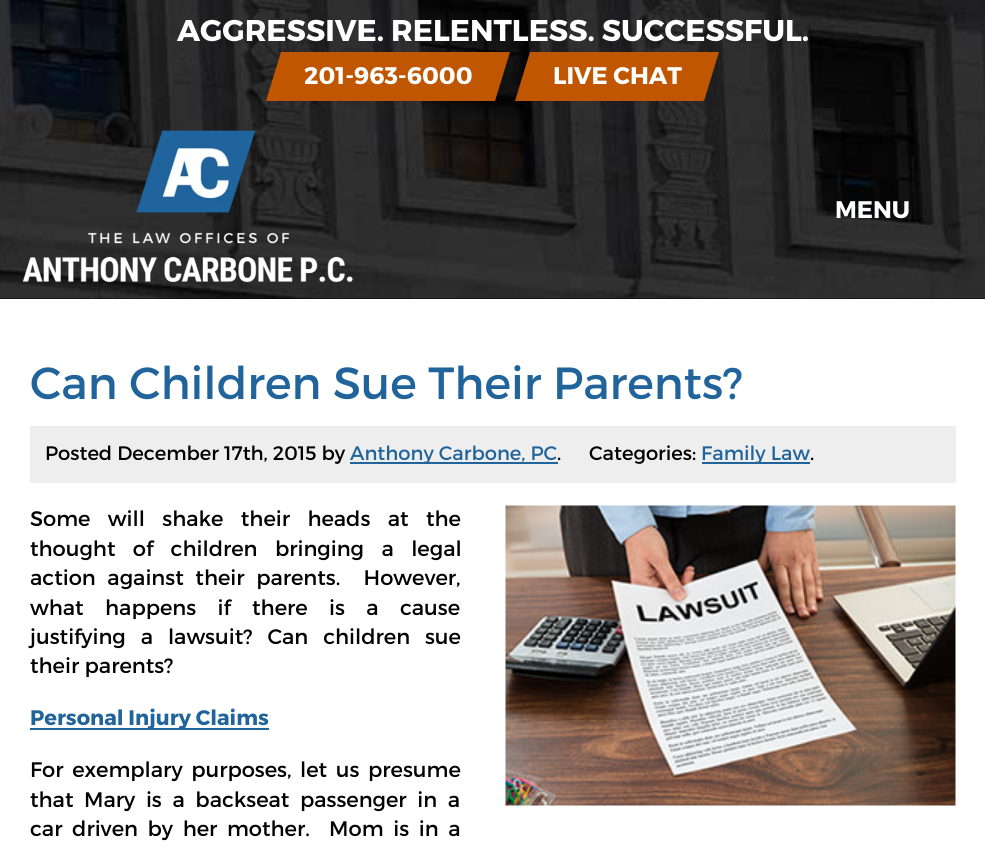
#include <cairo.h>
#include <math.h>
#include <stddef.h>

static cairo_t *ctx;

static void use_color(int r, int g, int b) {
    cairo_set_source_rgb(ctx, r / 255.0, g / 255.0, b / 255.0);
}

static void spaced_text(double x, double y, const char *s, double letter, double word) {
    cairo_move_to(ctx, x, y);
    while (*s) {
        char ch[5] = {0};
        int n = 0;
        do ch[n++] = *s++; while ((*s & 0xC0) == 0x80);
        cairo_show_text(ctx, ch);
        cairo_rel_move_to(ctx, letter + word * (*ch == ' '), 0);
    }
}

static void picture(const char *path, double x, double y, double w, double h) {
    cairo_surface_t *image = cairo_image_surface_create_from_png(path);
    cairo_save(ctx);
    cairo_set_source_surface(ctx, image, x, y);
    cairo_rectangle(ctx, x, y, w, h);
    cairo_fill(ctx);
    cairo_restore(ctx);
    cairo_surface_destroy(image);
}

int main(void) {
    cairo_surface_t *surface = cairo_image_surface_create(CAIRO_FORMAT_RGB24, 985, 842);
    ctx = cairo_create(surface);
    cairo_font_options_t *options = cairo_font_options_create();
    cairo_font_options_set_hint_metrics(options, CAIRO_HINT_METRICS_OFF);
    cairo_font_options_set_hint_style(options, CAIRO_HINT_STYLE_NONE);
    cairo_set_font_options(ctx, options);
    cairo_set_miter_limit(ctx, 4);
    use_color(255, 255, 255);
    cairo_paint(ctx);
    use_color(0, 0, 0);
    cairo_rectangle(ctx, 0, 298, 985, 1);
    cairo_fill(ctx);
    picture("img1.png", 0, 0, 985, 299);
    cairo_select_font_face(ctx, "Montserrat", CAIRO_FONT_SLANT_NORMAL, CAIRO_FONT_WEIGHT_BOLD);
    cairo_set_font_size(ctx, 30);
    use_color(255, 255, 255);
    cairo_move_to(ctx, 177, 41);
    cairo_show_text(ctx, "AGGRESSIVE. RELENTLESS. SUCCESSFUL.");
    use_color(192, 86, 0);
    cairo_new_path(ctx);
    cairo_move_to(ctx, 281, 52);
    cairo_line_to(ctx, 510, 52);
    cairo_line_to(ctx, 495, 101);
    cairo_line_to(ctx, 266, 101);
    cairo_close_path(ctx);
    cairo_fill(ctx);
    cairo_set_font_size(ctx, 24);
    use_color(255, 255, 255);
    cairo_move_to(ctx, 304, 84);
    cairo_show_text(ctx, "201-963-6000");
    use_color(192, 86, 0);
    cairo_new_path(ctx);
    cairo_move_to(ctx, 530, 52);
    cairo_line_to(ctx, 719, 52);
    cairo_line_to(ctx, 704, 101);
    cairo_line_to(ctx, 515, 101);
    cairo_close_path(ctx);
    cairo_fill(ctx);
    use_color(255, 255, 255);
    cairo_move_to(ctx, 553, 84);
    cairo_show_text(ctx, "LIVE CHAT");
    picture("img2.png", 22, 130, 331, 153);
    cairo_move_to(ctx, 835, 218);
    cairo_show_text(ctx, "MENU");
    cairo_select_font_face(ctx, "Montserrat", CAIRO_FONT_SLANT_NORMAL, CAIRO_FONT_WEIGHT_NORMAL);
    cairo_set_font_size(ctx, 45);
    use_color(33, 100, 156);
    cairo_move_to(ctx, 30, 399);
    cairo_show_text(ctx, "Can Children Sue Their Parents?");
    use_color(238, 238, 238);
    cairo_rectangle(ctx, 30, 426, 926, 57);
    cairo_fill(ctx);
    cairo_set_font_size(ctx, 19.5);
    use_color(0, 0, 0);
    cairo_move_to(ctx, 45, 460);
    cairo_show_text(ctx, "Posted December 17th, 2015 by");
    use_color(33, 100, 156);
    cairo_rectangle(ctx, 350, 462, 208, 2);
    cairo_fill(ctx);
    cairo_move_to(ctx, 350, 460);
    cairo_show_text(ctx, "Anthony Carbone, PC");
    use_color(0, 0, 0);
    cairo_move_to(ctx, 557, 460);
    cairo_show_text(ctx, ".");
    cairo_move_to(ctx, 589, 460);
    cairo_show_text(ctx, "Categories:");
    use_color(33, 100, 156);
    cairo_rectangle(ctx, 702, 462, 108, 2);
    cairo_fill(ctx);
    cairo_move_to(ctx, 701, 460);
    cairo_show_text(ctx, "Family Law");
    use_color(0, 0, 0);
    cairo_move_to(ctx, 810, 460);
    cairo_show_text(ctx, ".");
    cairo_set_font_size(ctx, 21);
    spaced_text(30, 526, "Some will shake their heads at the", 0, 12);
    picture("img3.png", 505, 505, 451, 301);
    spaced_text(30, 556, "thought of children bringing a legal", 0, 12);
    spaced_text(30, 585, "action against their parents.  However,", 0, 6.25);
    spaced_text(30, 615, "what happens if there is a cause", 0, 16);
    spaced_text(30, 644, "justifying a lawsuit? Can children sue", 0, 9.5);
    cairo_move_to(ctx, 30, 673);
    cairo_show_text(ctx, "their parents?");
    use_color(33, 100, 156);
    cairo_rectangle(ctx, 30, 728, 239, 2);
    cairo_fill(ctx);
    cairo_select_font_face(ctx, "Montserrat", CAIRO_FONT_SLANT_NORMAL, CAIRO_FONT_WEIGHT_BOLD);
    cairo_move_to(ctx, 30, 725);
    cairo_show_text(ctx, "Personal Injury Claims");
    cairo_select_font_face(ctx, "Montserrat", CAIRO_FONT_SLANT_NORMAL, CAIRO_FONT_WEIGHT_NORMAL);
    use_color(0, 0, 0);
    spaced_text(30, 777, "For exemplary purposes, let us presume", 0, 3.25);
    spaced_text(30, 807, "that Mary is a backseat passenger in a", 0, 5.25);
    spaced_text(30, 836, "car driven by her mother.  Mom is in a", 0, 4.25);
    cairo_surface_write_to_png(surface, "result.png");
    cairo_font_options_destroy(options);
    cairo_destroy(ctx);
    cairo_surface_destroy(surface);
    return 0;
}
